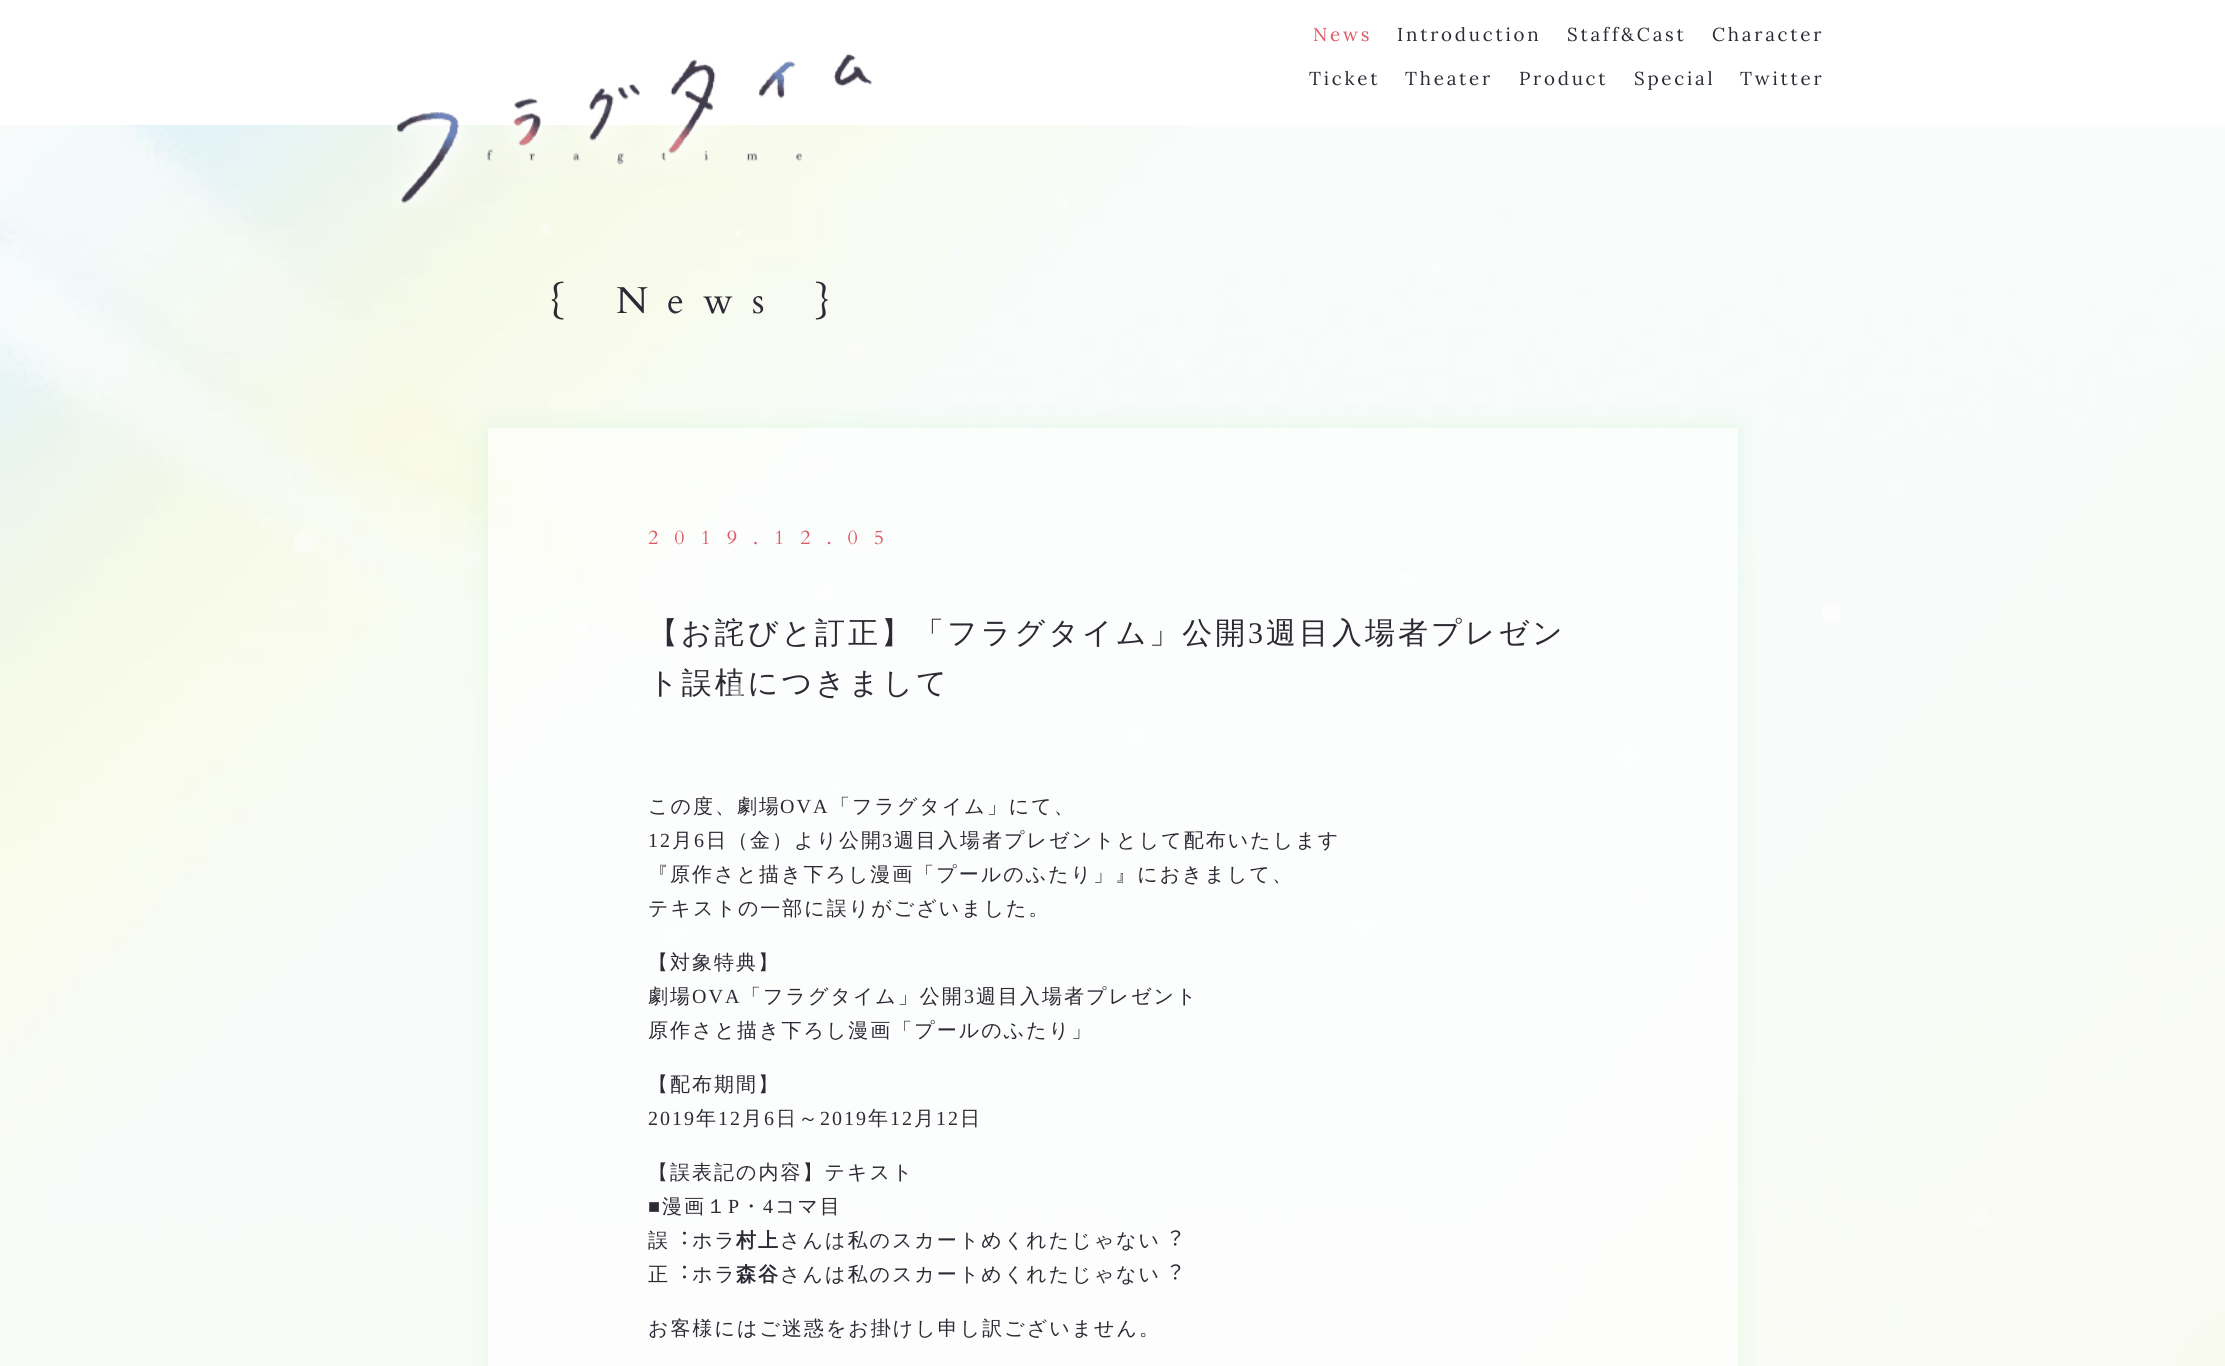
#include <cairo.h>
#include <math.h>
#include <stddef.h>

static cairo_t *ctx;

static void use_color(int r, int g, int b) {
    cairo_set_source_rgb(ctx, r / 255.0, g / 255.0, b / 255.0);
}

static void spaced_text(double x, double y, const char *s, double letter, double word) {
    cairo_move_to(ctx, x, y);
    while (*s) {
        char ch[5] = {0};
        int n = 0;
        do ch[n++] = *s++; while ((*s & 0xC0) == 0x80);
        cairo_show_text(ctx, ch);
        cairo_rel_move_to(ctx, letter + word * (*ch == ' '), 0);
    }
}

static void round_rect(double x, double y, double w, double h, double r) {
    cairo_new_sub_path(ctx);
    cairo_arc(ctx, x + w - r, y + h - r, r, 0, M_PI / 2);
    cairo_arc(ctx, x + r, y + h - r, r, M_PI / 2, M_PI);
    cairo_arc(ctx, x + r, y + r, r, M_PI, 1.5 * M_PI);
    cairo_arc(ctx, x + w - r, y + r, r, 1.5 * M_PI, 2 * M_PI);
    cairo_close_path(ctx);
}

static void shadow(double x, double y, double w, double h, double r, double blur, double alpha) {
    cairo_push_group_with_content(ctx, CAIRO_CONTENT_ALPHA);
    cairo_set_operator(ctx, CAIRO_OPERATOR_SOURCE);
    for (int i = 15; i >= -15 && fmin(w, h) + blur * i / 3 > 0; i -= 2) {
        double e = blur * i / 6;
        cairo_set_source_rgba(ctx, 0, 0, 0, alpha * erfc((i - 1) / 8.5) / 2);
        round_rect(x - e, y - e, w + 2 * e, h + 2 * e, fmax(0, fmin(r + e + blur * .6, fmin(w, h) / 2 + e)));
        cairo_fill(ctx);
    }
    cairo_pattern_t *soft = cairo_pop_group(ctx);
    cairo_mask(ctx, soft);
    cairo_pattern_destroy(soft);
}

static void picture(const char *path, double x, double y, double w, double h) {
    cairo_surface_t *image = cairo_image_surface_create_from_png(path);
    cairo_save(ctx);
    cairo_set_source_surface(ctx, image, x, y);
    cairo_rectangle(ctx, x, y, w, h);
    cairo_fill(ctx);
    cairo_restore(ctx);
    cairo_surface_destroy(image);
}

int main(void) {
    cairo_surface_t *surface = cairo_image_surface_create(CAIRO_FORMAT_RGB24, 2225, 1366);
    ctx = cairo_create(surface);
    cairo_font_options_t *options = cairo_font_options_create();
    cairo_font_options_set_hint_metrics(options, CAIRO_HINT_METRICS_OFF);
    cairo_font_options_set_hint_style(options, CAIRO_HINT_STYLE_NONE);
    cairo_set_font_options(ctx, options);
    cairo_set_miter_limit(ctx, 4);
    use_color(255, 255, 255);
    cairo_paint(ctx);
    picture("img3.png", 0, 125, 2225, 1241);
    picture("img1.png", 392, 53, 480, 156);
    cairo_select_font_face(ctx, "Lora", CAIRO_FONT_SLANT_NORMAL, CAIRO_FONT_WEIGHT_NORMAL);
    cairo_set_font_size(ctx, 18.75);
    use_color(221, 90, 101);
    spaced_text(1313, 41, "News", 2.75, 0);
    use_color(46, 42, 53);
    spaced_text(1397, 41, "Introduction", 2.75, 0);
    spaced_text(1567, 41, "Staff&Cast", 2.75, 0);
    spaced_text(1712, 41, "Character", 2.75, 0);
    spaced_text(1309, 85, "Ticket", 2.75, 0);
    spaced_text(1405, 85, "Theater", 2.75, 0);
    spaced_text(1519, 85, "Product", 2.75, 0);
    spaced_text(1634, 85, "Special", 2.75, 0);
    spaced_text(1740, 85, "Twitter", 2.75, 0);
    cairo_select_font_face(ctx, "Cardo", CAIRO_FONT_SLANT_NORMAL, CAIRO_FONT_WEIGHT_NORMAL);
    cairo_set_font_size(ctx, 37.5);
    spaced_text(548, 313, "{", 19, 0);
    spaced_text(616, 313, "News", 19, 0);
    spaced_text(812, 313, "}", 19, 0);
    cairo_save(ctx);
    cairo_set_fill_rule(ctx, CAIRO_FILL_RULE_EVEN_ODD);
    cairo_new_path(ctx);
    cairo_move_to(ctx, 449, 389);
    cairo_line_to(ctx, 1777, 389);
    cairo_line_to(ctx, 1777, 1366);
    cairo_line_to(ctx, 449, 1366);
    cairo_close_path(ctx);
    cairo_move_to(ctx, 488, 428);
    cairo_line_to(ctx, 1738, 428);
    cairo_line_to(ctx, 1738, 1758);
    cairo_line_to(ctx, 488, 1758);
    cairo_close_path(ctx);
    cairo_clip(ctx);
    use_color(192, 243, 203);
    shadow(488, 428, 1250, 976, 0, 12.5, 0.4);
    cairo_restore(ctx);
    cairo_set_source_rgba(ctx, 1, 1, 1, 0.5);
    cairo_rectangle(ctx, 488, 428, 1250, 938);
    cairo_fill(ctx);
    cairo_set_font_size(ctx, 20);
    use_color(221, 90, 101);
    spaced_text(648, 544, "2019.12.05", 16, 0);
    cairo_select_font_face(ctx, "WenQuanYi Zen Hei Medium", CAIRO_FONT_SLANT_NORMAL, CAIRO_FONT_WEIGHT_NORMAL);
    cairo_set_font_size(ctx, 30);
    use_color(46, 42, 53);
    spaced_text(648, 643, "【お詫びと訂正】「フラグタイム」公開", 3, 0);
    cairo_select_font_face(ctx, "Liberation Serif", CAIRO_FONT_SLANT_NORMAL, CAIRO_FONT_WEIGHT_NORMAL);
    spaced_text(1248, 643, "3", 3, 0);
    cairo_select_font_face(ctx, "WenQuanYi Zen Hei Medium", CAIRO_FONT_SLANT_NORMAL, CAIRO_FONT_WEIGHT_NORMAL);
    spaced_text(1266, 643, "週目入場者プレゼン", 3, 0);
    spaced_text(648, 693, "ト誤植につきまして", 3, 0);
    cairo_set_font_size(ctx, 20);
    spaced_text(648, 813, "この度、劇場", 2, 0);
    cairo_select_font_face(ctx, "Liberation Serif", CAIRO_FONT_SLANT_NORMAL, CAIRO_FONT_WEIGHT_NORMAL);
    spaced_text(780, 813, "OVA", 2, 0);
    cairo_select_font_face(ctx, "WenQuanYi Zen Hei Medium", CAIRO_FONT_SLANT_NORMAL, CAIRO_FONT_WEIGHT_NORMAL);
    spaced_text(830, 813, "「フラグタイム」にて、", 2, 0);
    cairo_select_font_face(ctx, "Liberation Serif", CAIRO_FONT_SLANT_NORMAL, CAIRO_FONT_WEIGHT_NORMAL);
    spaced_text(648, 847, "12", 2, 0);
    cairo_select_font_face(ctx, "WenQuanYi Zen Hei Medium", CAIRO_FONT_SLANT_NORMAL, CAIRO_FONT_WEIGHT_NORMAL);
    spaced_text(672, 847, "月", 2, 0);
    cairo_select_font_face(ctx, "Liberation Serif", CAIRO_FONT_SLANT_NORMAL, CAIRO_FONT_WEIGHT_NORMAL);
    spaced_text(694, 847, "6", 2, 0);
    cairo_select_font_face(ctx, "WenQuanYi Zen Hei Medium", CAIRO_FONT_SLANT_NORMAL, CAIRO_FONT_WEIGHT_NORMAL);
    spaced_text(706, 847, "日（金）より公開", 2, 0);
    cairo_select_font_face(ctx, "Liberation Serif", CAIRO_FONT_SLANT_NORMAL, CAIRO_FONT_WEIGHT_NORMAL);
    spaced_text(882, 847, "3", 2, 0);
    cairo_select_font_face(ctx, "WenQuanYi Zen Hei Medium", CAIRO_FONT_SLANT_NORMAL, CAIRO_FONT_WEIGHT_NORMAL);
    spaced_text(894, 847, "週目入場者プレゼントとして配布いたします", 2, 0);
    spaced_text(648, 881, "『原作さと描き下ろし漫画「プールのふたり」』におきまして、", 2, 0);
    spaced_text(648, 915, "テキストの一部に誤りがございました。", 2, 0);
    spaced_text(648, 969, "【対象特典】", 2, 0);
    spaced_text(648, 1003, "劇場", 2, 0);
    cairo_select_font_face(ctx, "Liberation Serif", CAIRO_FONT_SLANT_NORMAL, CAIRO_FONT_WEIGHT_NORMAL);
    spaced_text(692, 1003, "OVA", 2, 0);
    cairo_select_font_face(ctx, "WenQuanYi Zen Hei Medium", CAIRO_FONT_SLANT_NORMAL, CAIRO_FONT_WEIGHT_NORMAL);
    spaced_text(741, 1003, "「フラグタイム」公開", 2, 0);
    cairo_select_font_face(ctx, "Liberation Serif", CAIRO_FONT_SLANT_NORMAL, CAIRO_FONT_WEIGHT_NORMAL);
    spaced_text(964, 1003, "3", 2, 0);
    cairo_select_font_face(ctx, "WenQuanYi Zen Hei Medium", CAIRO_FONT_SLANT_NORMAL, CAIRO_FONT_WEIGHT_NORMAL);
    spaced_text(976, 1003, "週目入場者プレゼント", 2, 0);
    spaced_text(648, 1037, "原作さと描き下ろし漫画「プールのふたり」", 2, 0);
    spaced_text(648, 1091, "【配布期間】", 2, 0);
    cairo_select_font_face(ctx, "Liberation Serif", CAIRO_FONT_SLANT_NORMAL, CAIRO_FONT_WEIGHT_NORMAL);
    spaced_text(648, 1125, "2019", 2, 0);
    cairo_select_font_face(ctx, "WenQuanYi Zen Hei Medium", CAIRO_FONT_SLANT_NORMAL, CAIRO_FONT_WEIGHT_NORMAL);
    spaced_text(696, 1125, "年", 2, 0);
    cairo_select_font_face(ctx, "Liberation Serif", CAIRO_FONT_SLANT_NORMAL, CAIRO_FONT_WEIGHT_NORMAL);
    spaced_text(718, 1125, "12", 2, 0);
    cairo_select_font_face(ctx, "WenQuanYi Zen Hei Medium", CAIRO_FONT_SLANT_NORMAL, CAIRO_FONT_WEIGHT_NORMAL);
    spaced_text(742, 1125, "月", 2, 0);
    cairo_select_font_face(ctx, "Liberation Serif", CAIRO_FONT_SLANT_NORMAL, CAIRO_FONT_WEIGHT_NORMAL);
    spaced_text(764, 1125, "6", 2, 0);
    cairo_select_font_face(ctx, "WenQuanYi Zen Hei Medium", CAIRO_FONT_SLANT_NORMAL, CAIRO_FONT_WEIGHT_NORMAL);
    spaced_text(776, 1125, "日～", 2, 0);
    cairo_select_font_face(ctx, "Liberation Serif", CAIRO_FONT_SLANT_NORMAL, CAIRO_FONT_WEIGHT_NORMAL);
    spaced_text(820, 1125, "2019", 2, 0);
    cairo_select_font_face(ctx, "WenQuanYi Zen Hei Medium", CAIRO_FONT_SLANT_NORMAL, CAIRO_FONT_WEIGHT_NORMAL);
    spaced_text(868, 1125, "年", 2, 0);
    cairo_select_font_face(ctx, "Liberation Serif", CAIRO_FONT_SLANT_NORMAL, CAIRO_FONT_WEIGHT_NORMAL);
    spaced_text(890, 1125, "12", 2, 0);
    cairo_select_font_face(ctx, "WenQuanYi Zen Hei Medium", CAIRO_FONT_SLANT_NORMAL, CAIRO_FONT_WEIGHT_NORMAL);
    spaced_text(914, 1125, "月", 2, 0);
    cairo_select_font_face(ctx, "Liberation Serif", CAIRO_FONT_SLANT_NORMAL, CAIRO_FONT_WEIGHT_NORMAL);
    spaced_text(936, 1125, "12", 2, 0);
    cairo_select_font_face(ctx, "WenQuanYi Zen Hei Medium", CAIRO_FONT_SLANT_NORMAL, CAIRO_FONT_WEIGHT_NORMAL);
    spaced_text(960, 1125, "日", 2, 0);
    spaced_text(648, 1179, "【誤表記の内容】テキスト", 2, 0);
    cairo_select_font_face(ctx, "Liberation Serif", CAIRO_FONT_SLANT_NORMAL, CAIRO_FONT_WEIGHT_NORMAL);
    spaced_text(648, 1213, "■", 2, 0);
    cairo_select_font_face(ctx, "WenQuanYi Zen Hei Medium", CAIRO_FONT_SLANT_NORMAL, CAIRO_FONT_WEIGHT_NORMAL);
    spaced_text(662, 1213, "漫画１", 2, 0);
    cairo_select_font_face(ctx, "Liberation Serif", CAIRO_FONT_SLANT_NORMAL, CAIRO_FONT_WEIGHT_NORMAL);
    spaced_text(728, 1213, "P", 2, 0);
    cairo_select_font_face(ctx, "WenQuanYi Zen Hei Medium", CAIRO_FONT_SLANT_NORMAL, CAIRO_FONT_WEIGHT_NORMAL);
    spaced_text(741, 1213, "・", 2, 0);
    cairo_select_font_face(ctx, "Liberation Serif", CAIRO_FONT_SLANT_NORMAL, CAIRO_FONT_WEIGHT_NORMAL);
    spaced_text(763, 1213, "4", 2, 0);
    cairo_select_font_face(ctx, "WenQuanYi Zen Hei Medium", CAIRO_FONT_SLANT_NORMAL, CAIRO_FONT_WEIGHT_NORMAL);
    spaced_text(775, 1213, "コマ目", 2, 0);
    spaced_text(648, 1247, "誤", 2, 0);
    cairo_select_font_face(ctx, "Noto Sans CJK JP", CAIRO_FONT_SLANT_NORMAL, CAIRO_FONT_WEIGHT_NORMAL);
    spaced_text(670, 1247, "︓", 2, 0);
    cairo_select_font_face(ctx, "WenQuanYi Zen Hei Medium", CAIRO_FONT_SLANT_NORMAL, CAIRO_FONT_WEIGHT_NORMAL);
    spaced_text(692, 1247, "ホラ", 2, 0);
    cairo_select_font_face(ctx, "WenQuanYi Zen Hei", CAIRO_FONT_SLANT_NORMAL, CAIRO_FONT_WEIGHT_BOLD);
    spaced_text(736, 1247, "村上", 2, 0);
    cairo_select_font_face(ctx, "WenQuanYi Zen Hei Medium", CAIRO_FONT_SLANT_NORMAL, CAIRO_FONT_WEIGHT_NORMAL);
    spaced_text(780, 1247, "さんは私のスカートめくれたじゃない", 2, 0);
    cairo_select_font_face(ctx, "Noto Sans CJK JP", CAIRO_FONT_SLANT_NORMAL, CAIRO_FONT_WEIGHT_NORMAL);
    spaced_text(1161, 1247, "︖", 2, 0);
    picture("img2.png", 281, 97, 1710, 1153);
    cairo_select_font_face(ctx, "WenQuanYi Zen Hei Medium", CAIRO_FONT_SLANT_NORMAL, CAIRO_FONT_WEIGHT_NORMAL);
    spaced_text(648, 1281, "正", 2, 0);
    cairo_select_font_face(ctx, "Noto Sans CJK JP", CAIRO_FONT_SLANT_NORMAL, CAIRO_FONT_WEIGHT_NORMAL);
    spaced_text(670, 1281, "︓", 2, 0);
    cairo_select_font_face(ctx, "WenQuanYi Zen Hei Medium", CAIRO_FONT_SLANT_NORMAL, CAIRO_FONT_WEIGHT_NORMAL);
    spaced_text(692, 1281, "ホラ", 2, 0);
    cairo_select_font_face(ctx, "WenQuanYi Zen Hei", CAIRO_FONT_SLANT_NORMAL, CAIRO_FONT_WEIGHT_BOLD);
    spaced_text(736, 1281, "森谷", 2, 0);
    cairo_select_font_face(ctx, "WenQuanYi Zen Hei Medium", CAIRO_FONT_SLANT_NORMAL, CAIRO_FONT_WEIGHT_NORMAL);
    spaced_text(780, 1281, "さんは私のスカートめくれたじゃない", 2, 0);
    cairo_select_font_face(ctx, "Noto Sans CJK JP", CAIRO_FONT_SLANT_NORMAL, CAIRO_FONT_WEIGHT_NORMAL);
    spaced_text(1161, 1281, "︖", 2, 0);
    cairo_select_font_face(ctx, "WenQuanYi Zen Hei Medium", CAIRO_FONT_SLANT_NORMAL, CAIRO_FONT_WEIGHT_NORMAL);
    spaced_text(648, 1335, "お客様にはご迷惑をお掛けし申し訳ございません。", 2, 0);
    cairo_surface_write_to_png(surface, "result.png");
    cairo_font_options_destroy(options);
    cairo_destroy(ctx);
    cairo_surface_destroy(surface);
    return 0;
}
